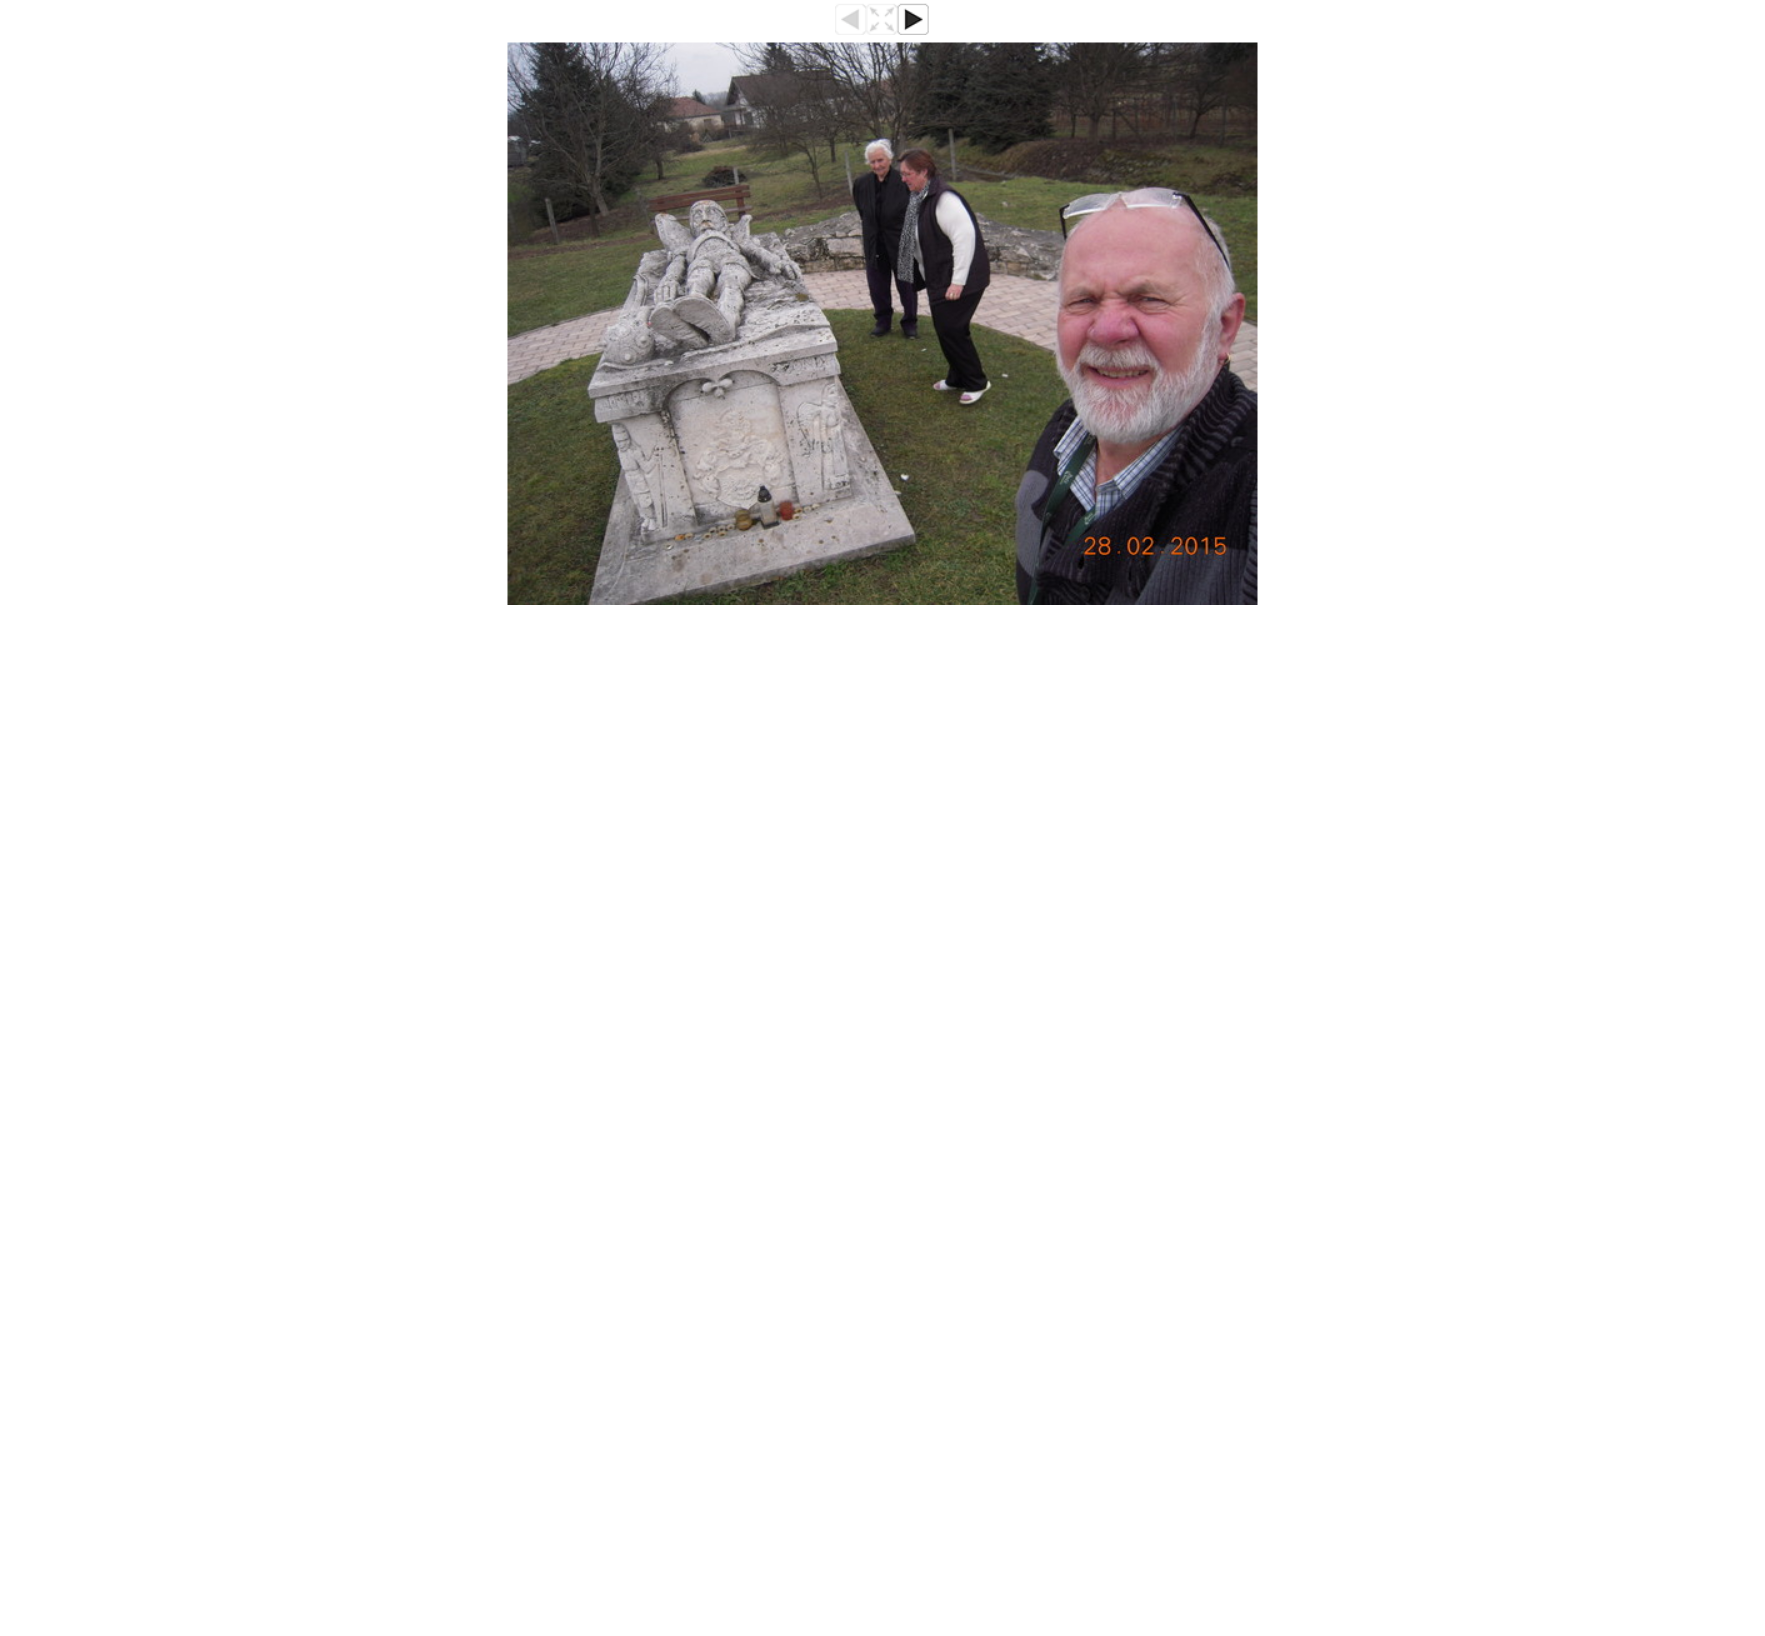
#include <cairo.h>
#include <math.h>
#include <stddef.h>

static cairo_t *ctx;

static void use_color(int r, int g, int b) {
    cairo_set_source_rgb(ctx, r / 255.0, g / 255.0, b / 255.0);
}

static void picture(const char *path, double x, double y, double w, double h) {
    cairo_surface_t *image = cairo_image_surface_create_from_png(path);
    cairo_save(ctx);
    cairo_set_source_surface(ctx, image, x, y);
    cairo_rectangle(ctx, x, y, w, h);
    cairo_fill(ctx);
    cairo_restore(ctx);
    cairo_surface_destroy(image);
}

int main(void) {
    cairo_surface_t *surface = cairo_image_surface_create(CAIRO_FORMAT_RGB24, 1765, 1636);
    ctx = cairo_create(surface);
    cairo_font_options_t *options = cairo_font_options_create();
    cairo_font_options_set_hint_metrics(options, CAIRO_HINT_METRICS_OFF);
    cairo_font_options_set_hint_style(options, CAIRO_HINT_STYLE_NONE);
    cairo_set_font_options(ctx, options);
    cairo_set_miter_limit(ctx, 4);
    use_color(255, 255, 255);
    cairo_paint(ctx);
    picture("img1.png", 835, 3, 32, 32);
    picture("img2.png", 866, 3, 32, 32);
    picture("img3.png", 897, 3, 32, 32);
    picture("img4.png", 507, 42, 751, 563);
    cairo_surface_write_to_png(surface, "result.png");
    cairo_font_options_destroy(options);
    cairo_destroy(ctx);
    cairo_surface_destroy(surface);
    return 0;
}
